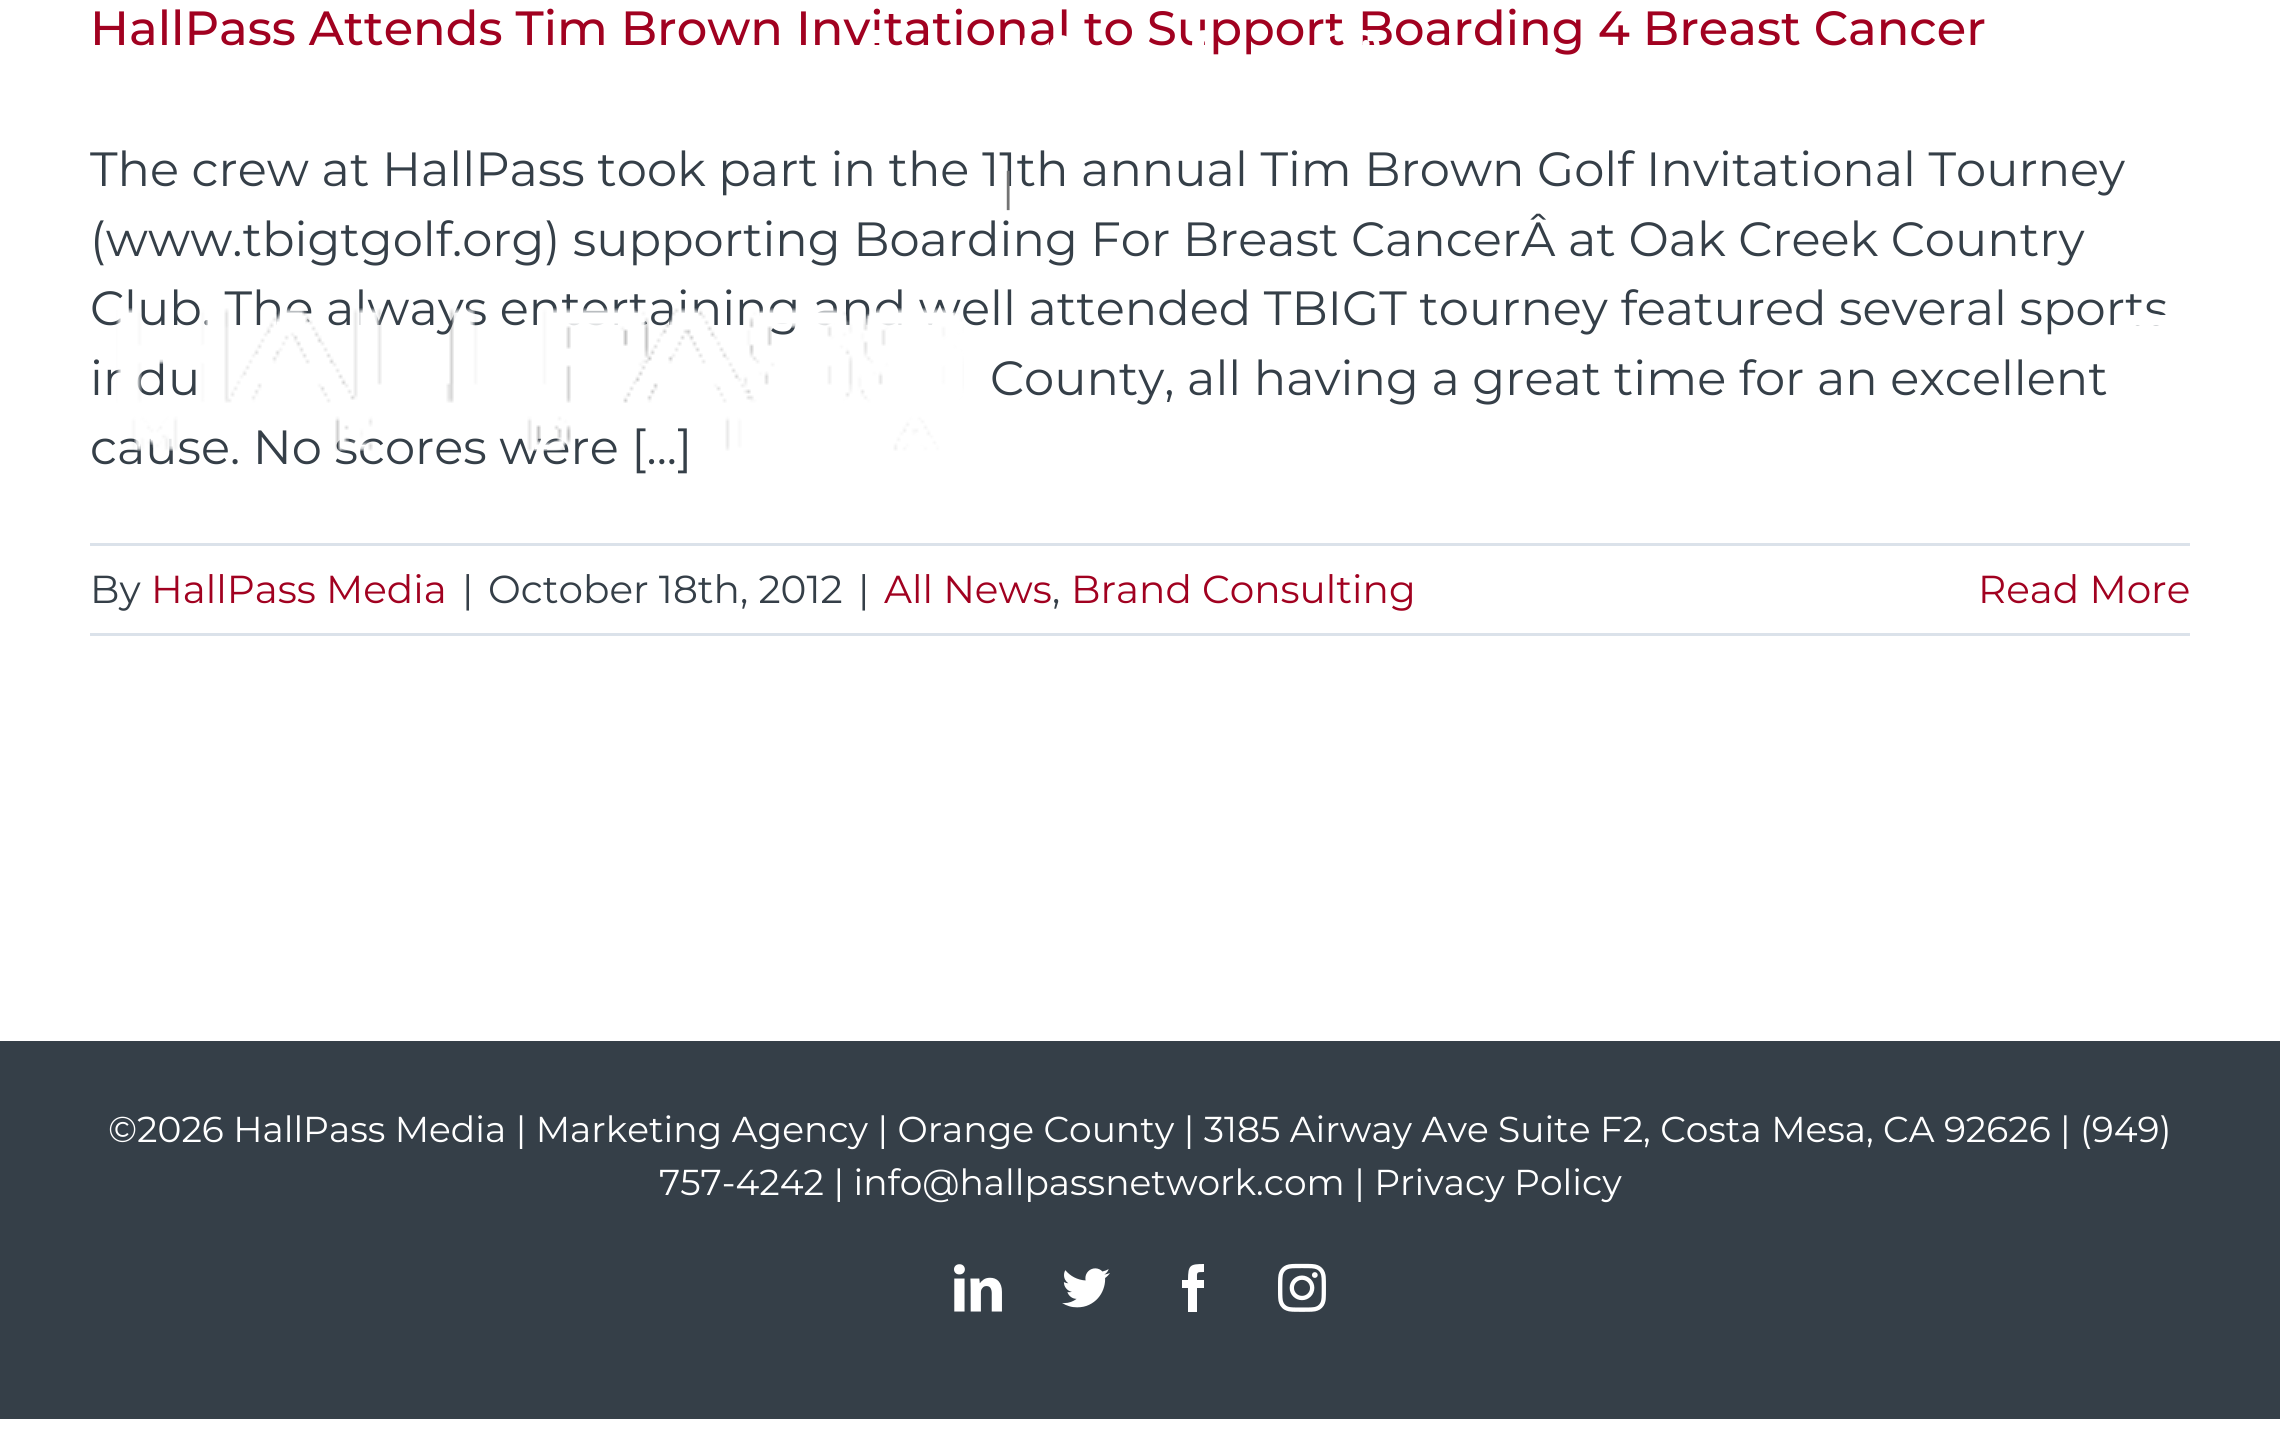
#include <cairo.h>
#include <math.h>
#include <stddef.h>

static cairo_t *ctx;

static void use_color(int r, int g, int b) {
    cairo_set_source_rgb(ctx, r / 255.0, g / 255.0, b / 255.0);
}

static void picture(const char *path, double x, double y, double w, double h) {
    cairo_surface_t *image = cairo_image_surface_create_from_png(path);
    cairo_save(ctx);
    cairo_set_source_surface(ctx, image, x, y);
    cairo_rectangle(ctx, x, y, w, h);
    cairo_fill(ctx);
    cairo_restore(ctx);
    cairo_surface_destroy(image);
}

int main(void) {
    cairo_surface_t *surface = cairo_image_surface_create(CAIRO_FORMAT_RGB24, 2280, 1454);
    ctx = cairo_create(surface);
    cairo_font_options_t *options = cairo_font_options_create();
    cairo_font_options_set_hint_metrics(options, CAIRO_HINT_METRICS_OFF);
    cairo_font_options_set_hint_style(options, CAIRO_HINT_STYLE_NONE);
    cairo_set_font_options(ctx, options);
    cairo_set_miter_limit(ctx, 4);
    use_color(255, 255, 255);
    cairo_paint(ctx);
    cairo_select_font_face(ctx, "Montserrat Medium", CAIRO_FONT_SLANT_NORMAL, CAIRO_FONT_WEIGHT_NORMAL);
    cairo_set_font_size(ctx, 48);
    use_color(161, 1, 32);
    cairo_move_to(ctx, 90, 45);
    cairo_show_text(ctx, "HallPass Attends Tim Brown Invitational to Support Boarding 4 Breast Cancer");
    cairo_select_font_face(ctx, "Montserrat", CAIRO_FONT_SLANT_NORMAL, CAIRO_FONT_WEIGHT_NORMAL);
    use_color(53, 63, 72);
    cairo_move_to(ctx, 90, 186);
    cairo_show_text(ctx, "The crew at HallPass took part in the 11th annual Tim Brown Golf Invitational Tourney");
    cairo_move_to(ctx, 90, 256);
    cairo_show_text(ctx, "(www.tbigtgolf.org) supporting Boarding For Breast CancerÂ at Oak Creek Country");
    cairo_move_to(ctx, 90, 325);
    cairo_show_text(ctx, "Club. The always entertaining and well attended TBIGT tourney featured several sports");
    cairo_move_to(ctx, 90, 395);
    cairo_show_text(ctx, "indu");
    cairo_move_to(ctx, 990, 395);
    cairo_show_text(ctx, "County, all having a great time for an excellent");
    cairo_move_to(ctx, 90, 464);
    cairo_show_text(ctx, "cause. No scores were [...]");
    use_color(219, 226, 234);
    cairo_rectangle(ctx, 90, 543, 2100, 3);
    cairo_fill(ctx);
    cairo_rectangle(ctx, 90, 633, 2100, 3);
    cairo_fill(ctx);
    cairo_set_font_size(ctx, 39);
    use_color(53, 63, 72);
    cairo_move_to(ctx, 90, 603);
    cairo_show_text(ctx, "By");
    use_color(161, 1, 32);
    cairo_move_to(ctx, 151, 603);
    cairo_show_text(ctx, "HallPass Media");
    use_color(53, 63, 72);
    cairo_move_to(ctx, 462, 603);
    cairo_show_text(ctx, "|");
    cairo_move_to(ctx, 488, 603);
    cairo_show_text(ctx, "October 18th, 2012");
    cairo_move_to(ctx, 858, 603);
    cairo_show_text(ctx, "|");
    use_color(161, 1, 32);
    cairo_move_to(ctx, 884, 603);
    cairo_show_text(ctx, "All News");
    use_color(53, 63, 72);
    cairo_move_to(ctx, 1052, 603);
    cairo_show_text(ctx, ",");
    use_color(161, 1, 32);
    cairo_move_to(ctx, 1071, 603);
    cairo_show_text(ctx, "Brand Consulting");
    cairo_move_to(ctx, 1978, 603);
    cairo_show_text(ctx, "Read More");
    use_color(255, 255, 255);
    cairo_rectangle(ctx, 874, 30, 6, 13);
    cairo_fill(ctx);
    picture("img1.png", 1022, 35, 45, 10);
    cairo_new_path(ctx);
    cairo_move_to(ctx, 1204, 90);
    cairo_line_to(ctx, 1192, 90);
    cairo_line_to(ctx, 1192, 60);
    cairo_line_to(ctx, 1185, 60);
    cairo_line_to(ctx, 1185, 49);
    cairo_line_to(ctx, 1192, 49);
    cairo_curve_to(ctx, 1192, 30, 1194, 30, 1213, 30);
    cairo_line_to(ctx, 1213, 40);
    cairo_curve_to(ctx, 1203, 40, 1204, 40, 1204, 49);
    cairo_line_to(ctx, 1213, 49);
    cairo_line_to(ctx, 1212, 60);
    cairo_line_to(ctx, 1204, 60);
    cairo_close_path(ctx);
    cairo_fill(ctx);
    picture("img2.png", 1330, 30, 50, 15);
    cairo_set_font_size(ctx, 42);
    use_color(116, 116, 116);
    cairo_move_to(ctx, 1002, 202);
    cairo_show_text(ctx, "|");
    picture("img3.png", 116, 308, 848, 143);
    use_color(255, 255, 255);
    cairo_rectangle(ctx, 2130, 315, 37, 10);
    cairo_fill(ctx);
    use_color(53, 63, 72);
    cairo_rectangle(ctx, 0, 1041, 2280, 378);
    cairo_fill(ctx);
    cairo_set_font_size(ctx, 36);
    use_color(255, 255, 255);
    cairo_move_to(ctx, 108, 1142);
    cairo_show_text(ctx, "©2026 HallPass Media | Marketing Agency | Orange County | 3185 Airway Ave Suite F2, Costa Mesa, CA 92626 | (949)");
    cairo_move_to(ctx, 659, 1195);
    cairo_show_text(ctx, "757-4242 | info@hallpassnetwork.com | Privacy Policy");
    picture("img4.png", 954, 1264, 48, 48);
    picture("img5.png", 1062, 1268, 48, 40);
    cairo_new_path(ctx);
    cairo_move_to(ctx, 1197, 1312);
    cairo_line_to(ctx, 1188, 1312);
    cairo_line_to(ctx, 1188, 1288);
    cairo_line_to(ctx, 1182, 1288);
    cairo_line_to(ctx, 1182, 1280);
    cairo_line_to(ctx, 1188, 1280);
    cairo_curve_to(ctx, 1188, 1265, 1190, 1264, 1204, 1264);
    cairo_line_to(ctx, 1204, 1272);
    cairo_curve_to(ctx, 1196, 1272, 1197, 1272, 1197, 1280);
    cairo_line_to(ctx, 1204, 1280);
    cairo_line_to(ctx, 1204, 1288);
    cairo_line_to(ctx, 1197, 1288);
    cairo_close_path(ctx);
    cairo_fill(ctx);
    picture("img6.png", 1278, 1263, 48, 49);
    cairo_surface_write_to_png(surface, "result.png");
    cairo_font_options_destroy(options);
    cairo_destroy(ctx);
    cairo_surface_destroy(surface);
    return 0;
}
